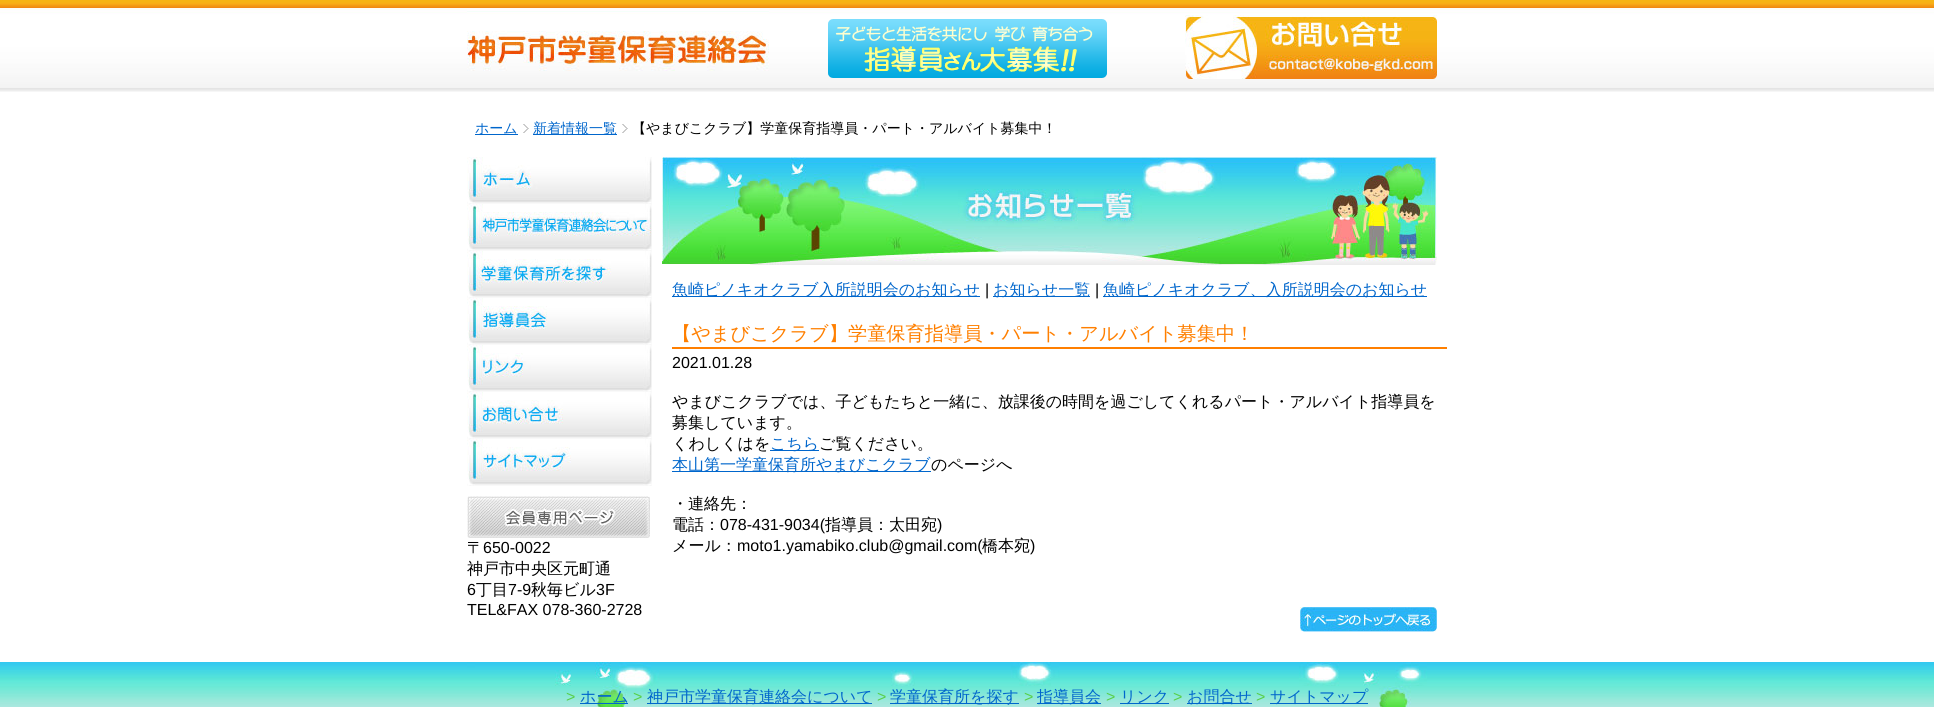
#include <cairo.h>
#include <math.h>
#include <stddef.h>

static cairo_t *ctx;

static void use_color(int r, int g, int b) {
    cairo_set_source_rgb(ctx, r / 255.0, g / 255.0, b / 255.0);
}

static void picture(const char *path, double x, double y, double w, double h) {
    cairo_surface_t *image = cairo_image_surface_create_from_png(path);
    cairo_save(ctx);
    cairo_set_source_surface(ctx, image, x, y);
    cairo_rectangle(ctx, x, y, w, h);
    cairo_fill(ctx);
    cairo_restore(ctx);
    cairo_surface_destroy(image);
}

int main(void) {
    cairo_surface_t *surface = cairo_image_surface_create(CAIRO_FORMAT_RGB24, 1934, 707);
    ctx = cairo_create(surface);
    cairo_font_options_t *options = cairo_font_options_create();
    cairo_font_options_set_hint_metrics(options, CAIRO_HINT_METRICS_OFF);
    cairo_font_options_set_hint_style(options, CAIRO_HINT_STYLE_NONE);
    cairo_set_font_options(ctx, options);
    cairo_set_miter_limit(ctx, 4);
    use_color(255, 255, 255);
    cairo_paint(ctx);
    picture("img1.png", 0, 0, 1934, 92);
    picture("img2.png", 467, 7, 302, 64);
    picture("img3.png", 828, 19, 279, 59);
    picture("img4.png", 1185, 15, 252, 64);
    use_color(0, 102, 204);
    cairo_rectangle(ctx, 475, 134, 43, 1);
    cairo_fill(ctx);
    cairo_select_font_face(ctx, "WenQuanYi Zen Hei Medium", CAIRO_FONT_SLANT_NORMAL, CAIRO_FONT_WEIGHT_NORMAL);
    cairo_set_font_size(ctx, 14);
    cairo_move_to(ctx, 475, 133);
    cairo_show_text(ctx, "ホーム");
    picture("img5.png", 523, 124, 6, 9);
    cairo_rectangle(ctx, 533, 134, 84, 1);
    cairo_fill(ctx);
    cairo_move_to(ctx, 533, 133);
    cairo_show_text(ctx, "新着情報一覧");
    picture("img5.png", 622, 124, 6, 9);
    use_color(0, 0, 0);
    cairo_move_to(ctx, 632, 133);
    cairo_show_text(ctx, "【やまびこクラブ】学童保育指導員・パート・アルバイト募集中！");
    picture("img6.png", 662, 157, 775, 108);
    use_color(0, 102, 204);
    cairo_rectangle(ctx, 672, 296, 308, 1);
    cairo_fill(ctx);
    cairo_set_font_size(ctx, 16);
    cairo_move_to(ctx, 672, 295);
    cairo_show_text(ctx, "魚崎ピノキオクラブ入所説明会のお知らせ");
    cairo_select_font_face(ctx, "Liberation Sans", CAIRO_FONT_SLANT_NORMAL, CAIRO_FONT_WEIGHT_NORMAL);
    use_color(0, 0, 0);
    cairo_move_to(ctx, 985, 295);
    cairo_show_text(ctx, "|");
    use_color(0, 102, 204);
    cairo_rectangle(ctx, 993, 296, 97, 1);
    cairo_fill(ctx);
    cairo_select_font_face(ctx, "WenQuanYi Zen Hei Medium", CAIRO_FONT_SLANT_NORMAL, CAIRO_FONT_WEIGHT_NORMAL);
    cairo_move_to(ctx, 993, 295);
    cairo_show_text(ctx, "お知らせ一覧");
    cairo_select_font_face(ctx, "Liberation Sans", CAIRO_FONT_SLANT_NORMAL, CAIRO_FONT_WEIGHT_NORMAL);
    use_color(0, 0, 0);
    cairo_move_to(ctx, 1095, 295);
    cairo_show_text(ctx, "|");
    use_color(0, 102, 204);
    cairo_rectangle(ctx, 1103, 296, 324, 1);
    cairo_fill(ctx);
    cairo_select_font_face(ctx, "WenQuanYi Zen Hei Medium", CAIRO_FONT_SLANT_NORMAL, CAIRO_FONT_WEIGHT_NORMAL);
    cairo_move_to(ctx, 1103, 295);
    cairo_show_text(ctx, "魚崎ピノキオクラブ、入所説明会のお知らせ");
    use_color(255, 127, 0);
    cairo_rectangle(ctx, 672, 347, 775, 2);
    cairo_fill(ctx);
    cairo_set_font_size(ctx, 19.2);
    cairo_move_to(ctx, 672, 340);
    cairo_show_text(ctx, "【やまびこクラブ】学童保育指導員・パート・アルバイト募集中！");
    cairo_select_font_face(ctx, "Liberation Sans", CAIRO_FONT_SLANT_NORMAL, CAIRO_FONT_WEIGHT_NORMAL);
    cairo_set_font_size(ctx, 16);
    use_color(0, 0, 0);
    cairo_move_to(ctx, 672, 368);
    cairo_show_text(ctx, "2021.01.28");
    cairo_select_font_face(ctx, "WenQuanYi Zen Hei Medium", CAIRO_FONT_SLANT_NORMAL, CAIRO_FONT_WEIGHT_NORMAL);
    cairo_move_to(ctx, 672, 407);
    cairo_show_text(ctx, "やまびこクラブでは、子どもたちと一緒に、放課後の時間を過ごしてくれるパート・アルバイト指導員を");
    cairo_move_to(ctx, 672, 428);
    cairo_show_text(ctx, "募集しています。");
    cairo_move_to(ctx, 672, 449);
    cairo_show_text(ctx, "くわしくはを");
    use_color(0, 102, 204);
    cairo_rectangle(ctx, 770, 450, 49, 1);
    cairo_fill(ctx);
    cairo_move_to(ctx, 770, 449);
    cairo_show_text(ctx, "こちら");
    use_color(0, 0, 0);
    cairo_move_to(ctx, 819, 449);
    cairo_show_text(ctx, "ご覧ください。");
    use_color(0, 102, 204);
    cairo_rectangle(ctx, 672, 471, 259, 1);
    cairo_fill(ctx);
    cairo_move_to(ctx, 672, 470);
    cairo_show_text(ctx, "本山第一学童保育所やまびこクラブ");
    use_color(0, 0, 0);
    cairo_move_to(ctx, 931, 470);
    cairo_show_text(ctx, "のページへ");
    cairo_move_to(ctx, 672, 509);
    cairo_show_text(ctx, "・連絡先：");
    cairo_move_to(ctx, 672, 530);
    cairo_show_text(ctx, "電話：");
    cairo_select_font_face(ctx, "Liberation Sans", CAIRO_FONT_SLANT_NORMAL, CAIRO_FONT_WEIGHT_NORMAL);
    cairo_move_to(ctx, 720, 530);
    cairo_show_text(ctx, "078-431-9034(");
    cairo_select_font_face(ctx, "WenQuanYi Zen Hei Medium", CAIRO_FONT_SLANT_NORMAL, CAIRO_FONT_WEIGHT_NORMAL);
    cairo_move_to(ctx, 825, 530);
    cairo_show_text(ctx, "指導員：太田宛");
    cairo_select_font_face(ctx, "Liberation Sans", CAIRO_FONT_SLANT_NORMAL, CAIRO_FONT_WEIGHT_NORMAL);
    cairo_move_to(ctx, 937, 530);
    cairo_show_text(ctx, ")");
    cairo_select_font_face(ctx, "WenQuanYi Zen Hei Medium", CAIRO_FONT_SLANT_NORMAL, CAIRO_FONT_WEIGHT_NORMAL);
    cairo_move_to(ctx, 672, 551);
    cairo_show_text(ctx, "メール：");
    cairo_select_font_face(ctx, "Liberation Sans", CAIRO_FONT_SLANT_NORMAL, CAIRO_FONT_WEIGHT_NORMAL);
    cairo_move_to(ctx, 737, 551);
    cairo_show_text(ctx, "moto1.yamabiko.club@gmail.com(");
    cairo_select_font_face(ctx, "WenQuanYi Zen Hei Medium", CAIRO_FONT_SLANT_NORMAL, CAIRO_FONT_WEIGHT_NORMAL);
    cairo_move_to(ctx, 982, 551);
    cairo_show_text(ctx, "橋本宛");
    cairo_select_font_face(ctx, "Liberation Sans", CAIRO_FONT_SLANT_NORMAL, CAIRO_FONT_WEIGHT_NORMAL);
    cairo_move_to(ctx, 1030, 551);
    cairo_show_text(ctx, ")");
    picture("img7.png", 1300, 607, 137, 25);
    picture("img8.png", 467, 157, 185, 47);
    picture("img9.png", 467, 204, 185, 47);
    picture("img10.png", 467, 251, 185, 47);
    picture("img11.png", 467, 298, 185, 47);
    picture("img12.png", 467, 345, 185, 47);
    picture("img13.png", 467, 392, 185, 47);
    picture("img14.png", 467, 439, 185, 47);
    picture("img15.png", 467, 496, 183, 42);
    cairo_select_font_face(ctx, "WenQuanYi Zen Hei Medium", CAIRO_FONT_SLANT_NORMAL, CAIRO_FONT_WEIGHT_NORMAL);
    cairo_move_to(ctx, 467, 553);
    cairo_show_text(ctx, "〒");
    cairo_select_font_face(ctx, "Liberation Sans", CAIRO_FONT_SLANT_NORMAL, CAIRO_FONT_WEIGHT_NORMAL);
    cairo_move_to(ctx, 483, 553);
    cairo_show_text(ctx, "650-0022");
    cairo_select_font_face(ctx, "WenQuanYi Zen Hei Medium", CAIRO_FONT_SLANT_NORMAL, CAIRO_FONT_WEIGHT_NORMAL);
    cairo_move_to(ctx, 467, 574);
    cairo_show_text(ctx, "神戸市中央区元町通");
    cairo_select_font_face(ctx, "Liberation Sans", CAIRO_FONT_SLANT_NORMAL, CAIRO_FONT_WEIGHT_NORMAL);
    cairo_move_to(ctx, 467, 595);
    cairo_show_text(ctx, "6");
    cairo_select_font_face(ctx, "WenQuanYi Zen Hei Medium", CAIRO_FONT_SLANT_NORMAL, CAIRO_FONT_WEIGHT_NORMAL);
    cairo_move_to(ctx, 476, 595);
    cairo_show_text(ctx, "丁目");
    cairo_select_font_face(ctx, "Liberation Sans", CAIRO_FONT_SLANT_NORMAL, CAIRO_FONT_WEIGHT_NORMAL);
    cairo_move_to(ctx, 508, 595);
    cairo_show_text(ctx, "7-9");
    cairo_select_font_face(ctx, "WenQuanYi Zen Hei Medium", CAIRO_FONT_SLANT_NORMAL, CAIRO_FONT_WEIGHT_NORMAL);
    cairo_move_to(ctx, 531, 595);
    cairo_show_text(ctx, "秋毎ビル");
    cairo_select_font_face(ctx, "Liberation Sans", CAIRO_FONT_SLANT_NORMAL, CAIRO_FONT_WEIGHT_NORMAL);
    cairo_move_to(ctx, 596, 595);
    cairo_show_text(ctx, "3F");
    cairo_move_to(ctx, 467, 615);
    cairo_show_text(ctx, "TEL&FAX 078-360-2728");
    picture("img16.png", 0, 662, 1934, 45);
    picture("img17.png", 467, 662, 1000, 45);
    use_color(87, 207, 73);
    cairo_move_to(ctx, 566, 702);
    cairo_show_text(ctx, ">");
    use_color(0, 102, 204);
    cairo_rectangle(ctx, 580, 703, 48, 1);
    cairo_fill(ctx);
    cairo_select_font_face(ctx, "WenQuanYi Zen Hei Medium", CAIRO_FONT_SLANT_NORMAL, CAIRO_FONT_WEIGHT_NORMAL);
    cairo_move_to(ctx, 580, 702);
    cairo_show_text(ctx, "ホーム");
    cairo_select_font_face(ctx, "Liberation Sans", CAIRO_FONT_SLANT_NORMAL, CAIRO_FONT_WEIGHT_NORMAL);
    use_color(87, 207, 73);
    cairo_move_to(ctx, 633, 702);
    cairo_show_text(ctx, ">");
    use_color(0, 102, 204);
    cairo_rectangle(ctx, 647, 703, 225, 1);
    cairo_fill(ctx);
    cairo_select_font_face(ctx, "WenQuanYi Zen Hei Medium", CAIRO_FONT_SLANT_NORMAL, CAIRO_FONT_WEIGHT_NORMAL);
    cairo_move_to(ctx, 647, 702);
    cairo_show_text(ctx, "神戸市学童保育連絡会について");
    cairo_select_font_face(ctx, "Liberation Sans", CAIRO_FONT_SLANT_NORMAL, CAIRO_FONT_WEIGHT_NORMAL);
    use_color(87, 207, 73);
    cairo_move_to(ctx, 877, 702);
    cairo_show_text(ctx, ">");
    use_color(0, 102, 204);
    cairo_rectangle(ctx, 890, 703, 129, 1);
    cairo_fill(ctx);
    cairo_select_font_face(ctx, "WenQuanYi Zen Hei Medium", CAIRO_FONT_SLANT_NORMAL, CAIRO_FONT_WEIGHT_NORMAL);
    cairo_move_to(ctx, 890, 702);
    cairo_show_text(ctx, "学童保育所を探す");
    cairo_select_font_face(ctx, "Liberation Sans", CAIRO_FONT_SLANT_NORMAL, CAIRO_FONT_WEIGHT_NORMAL);
    use_color(87, 207, 73);
    cairo_move_to(ctx, 1024, 702);
    cairo_show_text(ctx, ">");
    use_color(0, 102, 204);
    cairo_rectangle(ctx, 1037, 703, 64, 1);
    cairo_fill(ctx);
    cairo_select_font_face(ctx, "WenQuanYi Zen Hei Medium", CAIRO_FONT_SLANT_NORMAL, CAIRO_FONT_WEIGHT_NORMAL);
    cairo_move_to(ctx, 1037, 702);
    cairo_show_text(ctx, "指導員会");
    cairo_select_font_face(ctx, "Liberation Sans", CAIRO_FONT_SLANT_NORMAL, CAIRO_FONT_WEIGHT_NORMAL);
    use_color(87, 207, 73);
    cairo_move_to(ctx, 1106, 702);
    cairo_show_text(ctx, ">");
    use_color(0, 102, 204);
    cairo_rectangle(ctx, 1120, 703, 49, 1);
    cairo_fill(ctx);
    cairo_select_font_face(ctx, "WenQuanYi Zen Hei Medium", CAIRO_FONT_SLANT_NORMAL, CAIRO_FONT_WEIGHT_NORMAL);
    cairo_move_to(ctx, 1120, 702);
    cairo_show_text(ctx, "リンク");
    cairo_select_font_face(ctx, "Liberation Sans", CAIRO_FONT_SLANT_NORMAL, CAIRO_FONT_WEIGHT_NORMAL);
    use_color(87, 207, 73);
    cairo_move_to(ctx, 1173, 702);
    cairo_show_text(ctx, ">");
    use_color(0, 102, 204);
    cairo_rectangle(ctx, 1187, 703, 65, 1);
    cairo_fill(ctx);
    cairo_select_font_face(ctx, "WenQuanYi Zen Hei Medium", CAIRO_FONT_SLANT_NORMAL, CAIRO_FONT_WEIGHT_NORMAL);
    cairo_move_to(ctx, 1187, 702);
    cairo_show_text(ctx, "お問合せ");
    cairo_select_font_face(ctx, "Liberation Sans", CAIRO_FONT_SLANT_NORMAL, CAIRO_FONT_WEIGHT_NORMAL);
    use_color(87, 207, 73);
    cairo_move_to(ctx, 1256, 702);
    cairo_show_text(ctx, ">");
    use_color(0, 102, 204);
    cairo_rectangle(ctx, 1270, 703, 98, 1);
    cairo_fill(ctx);
    cairo_select_font_face(ctx, "WenQuanYi Zen Hei Medium", CAIRO_FONT_SLANT_NORMAL, CAIRO_FONT_WEIGHT_NORMAL);
    cairo_move_to(ctx, 1270, 702);
    cairo_show_text(ctx, "サイトマップ");
    cairo_surface_write_to_png(surface, "result.png");
    cairo_font_options_destroy(options);
    cairo_destroy(ctx);
    cairo_surface_destroy(surface);
    return 0;
}
